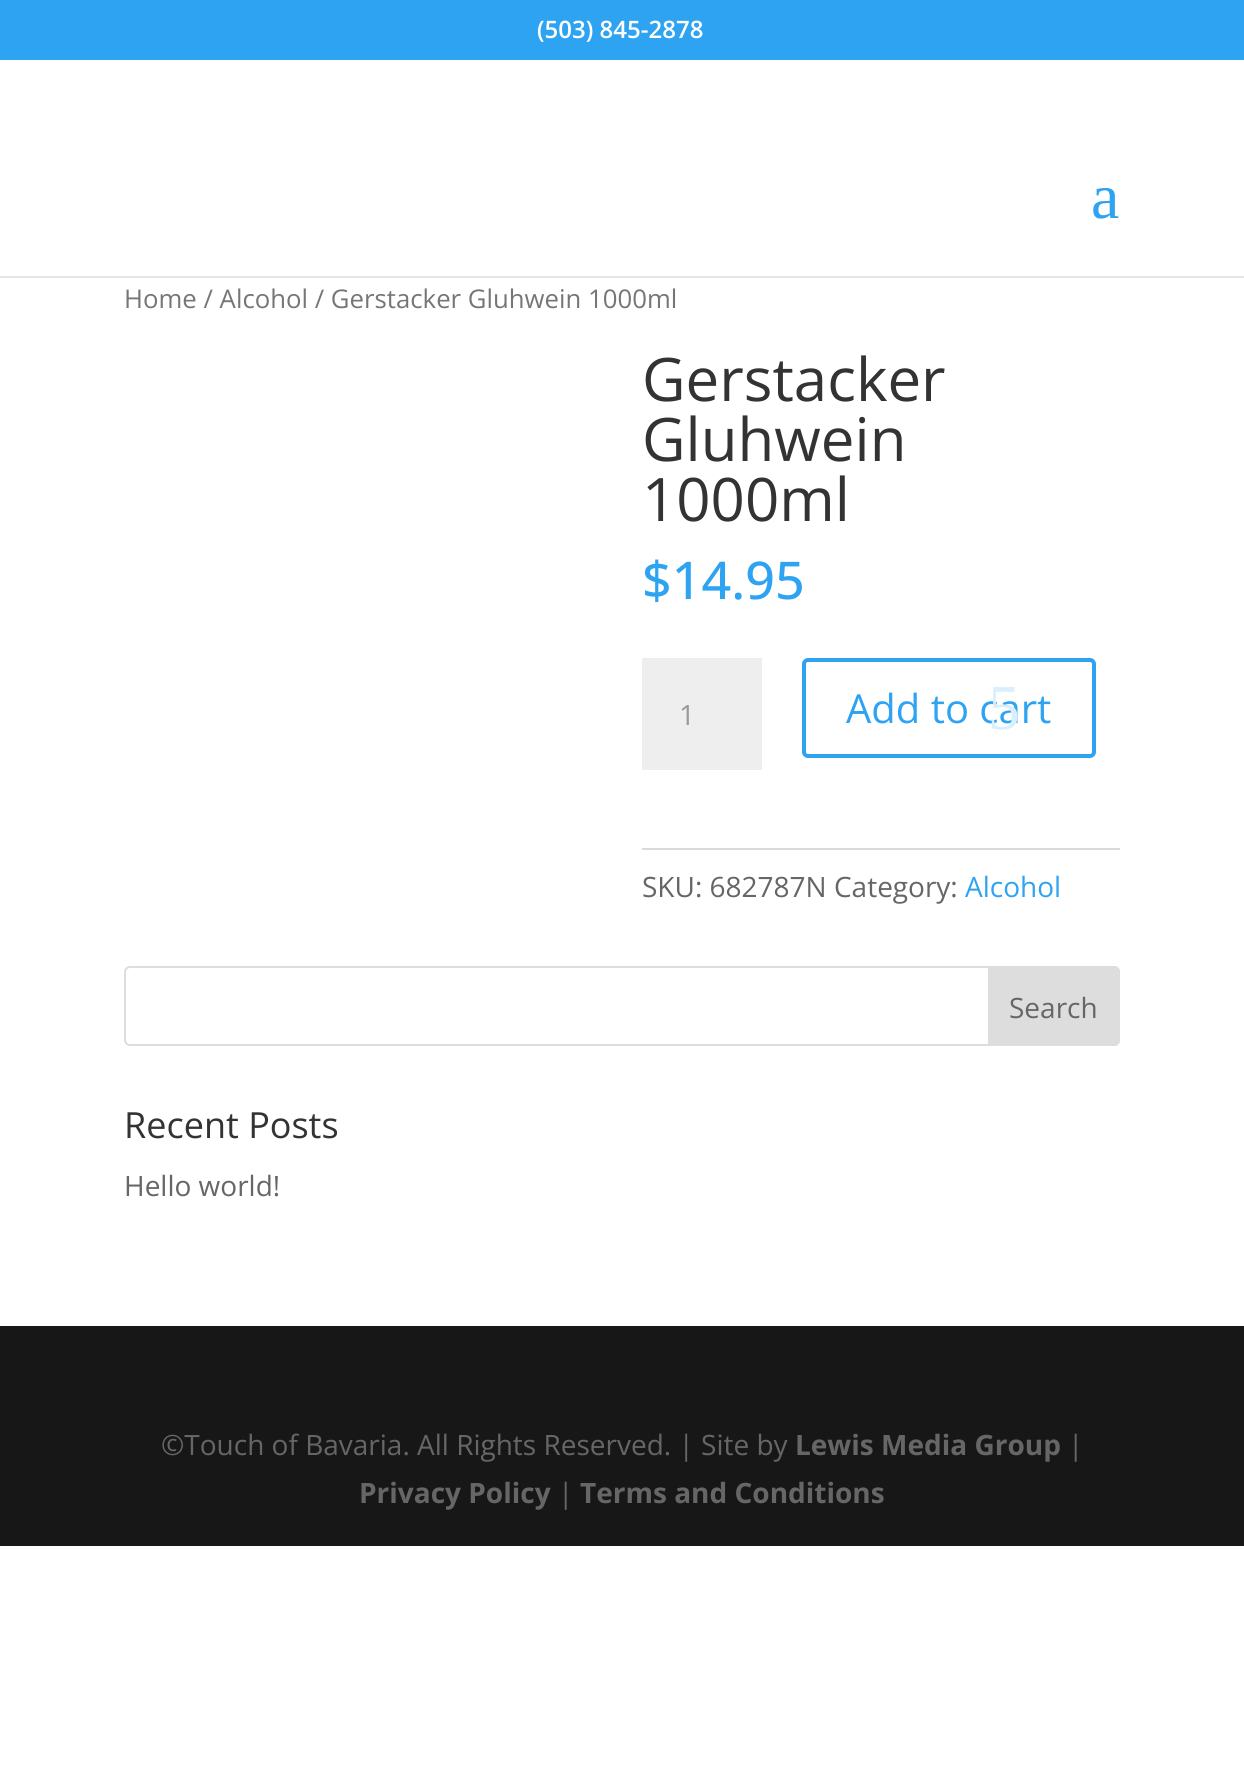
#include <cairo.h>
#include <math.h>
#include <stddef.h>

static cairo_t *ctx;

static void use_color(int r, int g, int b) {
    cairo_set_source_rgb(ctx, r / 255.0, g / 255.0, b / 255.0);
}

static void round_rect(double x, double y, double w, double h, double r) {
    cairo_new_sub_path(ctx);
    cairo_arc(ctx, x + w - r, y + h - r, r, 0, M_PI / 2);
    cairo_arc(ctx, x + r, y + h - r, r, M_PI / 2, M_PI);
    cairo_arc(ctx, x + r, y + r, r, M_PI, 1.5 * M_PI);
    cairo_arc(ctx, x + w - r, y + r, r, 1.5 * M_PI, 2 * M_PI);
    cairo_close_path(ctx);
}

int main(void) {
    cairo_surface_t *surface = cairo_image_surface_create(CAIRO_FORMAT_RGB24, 1244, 1783);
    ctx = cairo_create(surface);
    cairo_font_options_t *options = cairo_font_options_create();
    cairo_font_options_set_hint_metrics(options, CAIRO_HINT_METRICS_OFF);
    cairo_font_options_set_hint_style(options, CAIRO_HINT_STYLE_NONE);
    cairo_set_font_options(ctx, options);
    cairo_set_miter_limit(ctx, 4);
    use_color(255, 255, 255);
    cairo_paint(ctx);
    use_color(46, 163, 242);
    cairo_rectangle(ctx, 0, 0, 1244, 60);
    cairo_fill(ctx);
    cairo_select_font_face(ctx, "Open Sans SemiBold", CAIRO_FONT_SLANT_NORMAL, CAIRO_FONT_WEIGHT_NORMAL);
    cairo_set_font_size(ctx, 24);
    use_color(255, 255, 255);
    cairo_move_to(ctx, 537, 38);
    cairo_show_text(ctx, "(503) 845-2878");
    use_color(230, 230, 230);
    cairo_rectangle(ctx, 0, 276, 1244, 2);
    cairo_fill(ctx);
    cairo_select_font_face(ctx, "Liberation Serif", CAIRO_FONT_SLANT_NORMAL, CAIRO_FONT_WEIGHT_NORMAL);
    cairo_set_font_size(ctx, 64);
    use_color(46, 163, 242);
    cairo_move_to(ctx, 1091, 218);
    cairo_show_text(ctx, "a");
    cairo_select_font_face(ctx, "Open Sans", CAIRO_FONT_SLANT_NORMAL, CAIRO_FONT_WEIGHT_NORMAL);
    cairo_set_font_size(ctx, 25.75);
    use_color(118, 118, 118);
    cairo_move_to(ctx, 124, 308);
    cairo_show_text(ctx, "Home / Alcohol / Gerstacker Gluhwein 1000ml");
    cairo_set_font_size(ctx, 60);
    use_color(51, 51, 51);
    cairo_move_to(ctx, 642, 401);
    cairo_show_text(ctx, "Gerstacker");
    cairo_move_to(ctx, 642, 461);
    cairo_show_text(ctx, "Gluhwein");
    cairo_move_to(ctx, 642, 521);
    cairo_show_text(ctx, "1000ml");
    cairo_select_font_face(ctx, "Open Sans Medium", CAIRO_FONT_SLANT_NORMAL, CAIRO_FONT_WEIGHT_NORMAL);
    cairo_set_font_size(ctx, 52);
    use_color(46, 163, 242);
    cairo_move_to(ctx, 642, 599);
    cairo_show_text(ctx, "$14.95");
    use_color(238, 238, 238);
    cairo_rectangle(ctx, 642, 658, 120, 112);
    cairo_fill(ctx);
    cairo_select_font_face(ctx, "Open Sans", CAIRO_FONT_SLANT_NORMAL, CAIRO_FONT_WEIGHT_NORMAL);
    cairo_set_font_size(ctx, 28);
    use_color(153, 153, 153);
    cairo_move_to(ctx, 679, 725);
    cairo_show_text(ctx, "1");
    round_rect(804, 660, 290, 96, 4);
    use_color(46, 163, 242);
    cairo_set_line_width(ctx, 4);
    cairo_stroke(ctx);
    cairo_set_font_size(ctx, 40);
    cairo_move_to(ctx, 846, 723);
    cairo_show_text(ctx, "Add to cart");
    cairo_select_font_face(ctx, "Liberation Serif", CAIRO_FONT_SLANT_NORMAL, CAIRO_FONT_WEIGHT_NORMAL);
    cairo_set_font_size(ctx, 64);
    use_color(218, 239, 253);
    cairo_move_to(ctx, 988, 729);
    cairo_show_text(ctx, "5");
    use_color(218, 218, 218);
    cairo_rectangle(ctx, 642, 848, 478, 2);
    cairo_fill(ctx);
    cairo_select_font_face(ctx, "Open Sans", CAIRO_FONT_SLANT_NORMAL, CAIRO_FONT_WEIGHT_NORMAL);
    cairo_set_font_size(ctx, 28);
    use_color(102, 102, 102);
    cairo_move_to(ctx, 642, 897);
    cairo_show_text(ctx, "SKU: 682787N Category:");
    use_color(46, 163, 242);
    cairo_move_to(ctx, 965, 897);
    cairo_show_text(ctx, "Alcohol");
    round_rect(125, 967, 994, 78, 5);
    use_color(221, 221, 221);
    cairo_set_line_width(ctx, 2);
    cairo_stroke(ctx);
    cairo_new_path(ctx);
    cairo_move_to(ctx, 989, 967);
    cairo_line_to(ctx, 1114, 967);
    cairo_curve_to(ctx, 1117, 967, 1119, 969, 1119, 972);
    cairo_line_to(ctx, 1119, 1040);
    cairo_curve_to(ctx, 1119, 1043, 1117, 1045, 1114, 1045);
    cairo_line_to(ctx, 989, 1045);
    cairo_close_path(ctx);
    cairo_fill_preserve(ctx);
    cairo_stroke(ctx);
    use_color(102, 102, 102);
    cairo_move_to(ctx, 1009, 1018);
    cairo_show_text(ctx, "Search");
    cairo_set_font_size(ctx, 36);
    use_color(51, 51, 51);
    cairo_move_to(ctx, 124, 1138);
    cairo_show_text(ctx, "Recent Posts");
    cairo_set_font_size(ctx, 28);
    use_color(102, 102, 102);
    cairo_move_to(ctx, 124, 1196);
    cairo_show_text(ctx, "Hello world!");
    use_color(23, 23, 23);
    cairo_rectangle(ctx, 0, 1326, 1244, 220);
    cairo_fill(ctx);
    use_color(102, 102, 102);
    cairo_move_to(ctx, 161, 1455);
    cairo_show_text(ctx, "©Touch of Bavaria. All Rights Reserved. | Site by");
    cairo_select_font_face(ctx, "Open Sans", CAIRO_FONT_SLANT_NORMAL, CAIRO_FONT_WEIGHT_BOLD);
    cairo_move_to(ctx, 795, 1455);
    cairo_show_text(ctx, "Lewis Media Group");
    cairo_select_font_face(ctx, "Open Sans", CAIRO_FONT_SLANT_NORMAL, CAIRO_FONT_WEIGHT_NORMAL);
    cairo_move_to(ctx, 1068, 1455);
    cairo_show_text(ctx, "|");
    cairo_select_font_face(ctx, "Open Sans", CAIRO_FONT_SLANT_NORMAL, CAIRO_FONT_WEIGHT_BOLD);
    cairo_move_to(ctx, 359, 1503);
    cairo_show_text(ctx, "Privacy Policy");
    cairo_select_font_face(ctx, "Open Sans", CAIRO_FONT_SLANT_NORMAL, CAIRO_FONT_WEIGHT_NORMAL);
    cairo_move_to(ctx, 558, 1503);
    cairo_show_text(ctx, "|");
    cairo_select_font_face(ctx, "Open Sans", CAIRO_FONT_SLANT_NORMAL, CAIRO_FONT_WEIGHT_BOLD);
    cairo_move_to(ctx, 580, 1503);
    cairo_show_text(ctx, "Terms and Conditions");
    cairo_surface_write_to_png(surface, "result.png");
    cairo_font_options_destroy(options);
    cairo_destroy(ctx);
    cairo_surface_destroy(surface);
    return 0;
}
